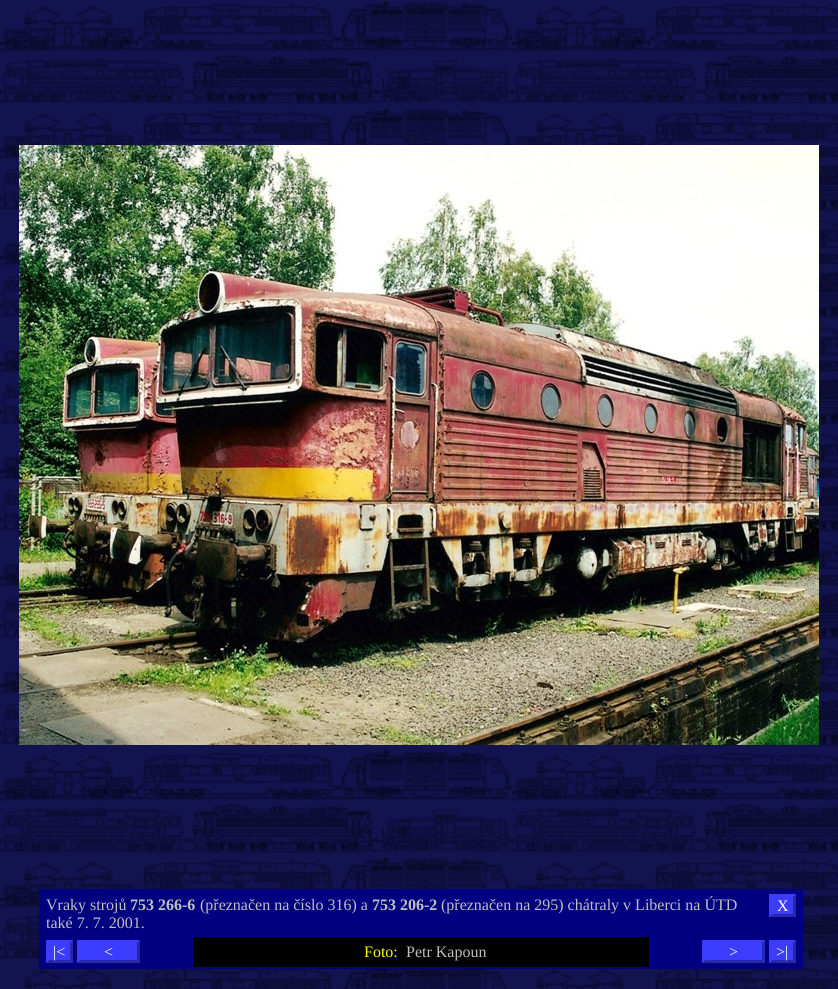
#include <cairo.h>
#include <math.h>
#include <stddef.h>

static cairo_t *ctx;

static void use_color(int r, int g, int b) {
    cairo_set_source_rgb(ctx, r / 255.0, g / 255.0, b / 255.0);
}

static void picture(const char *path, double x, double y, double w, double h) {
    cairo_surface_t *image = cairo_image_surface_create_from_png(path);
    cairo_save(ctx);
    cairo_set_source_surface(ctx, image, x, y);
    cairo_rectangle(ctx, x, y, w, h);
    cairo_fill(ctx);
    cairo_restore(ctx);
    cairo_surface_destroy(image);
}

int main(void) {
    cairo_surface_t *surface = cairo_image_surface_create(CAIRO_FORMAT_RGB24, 838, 989);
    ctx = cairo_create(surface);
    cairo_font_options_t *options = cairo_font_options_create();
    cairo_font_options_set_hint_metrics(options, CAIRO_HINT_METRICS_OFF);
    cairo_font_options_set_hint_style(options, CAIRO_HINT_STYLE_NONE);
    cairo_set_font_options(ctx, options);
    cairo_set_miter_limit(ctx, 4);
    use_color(255, 255, 255);
    cairo_paint(ctx);
    picture("img1.png", 0, 0, 838, 989);
    picture("img2.png", 19, 145, 800, 600);
    use_color(0, 0, 128);
    cairo_rectangle(ctx, 39, 889, 764, 80);
    cairo_fill(ctx);
    cairo_select_font_face(ctx, "Liberation Serif", CAIRO_FONT_SLANT_NORMAL, CAIRO_FONT_WEIGHT_NORMAL);
    cairo_set_font_size(ctx, 16);
    use_color(192, 192, 192);
    cairo_move_to(ctx, 46, 910);
    cairo_show_text(ctx, "Vraky strojů");
    cairo_select_font_face(ctx, "Liberation Serif", CAIRO_FONT_SLANT_NORMAL, CAIRO_FONT_WEIGHT_BOLD);
    cairo_move_to(ctx, 130, 910);
    cairo_show_text(ctx, "753 266-6");
    cairo_select_font_face(ctx, "Liberation Serif", CAIRO_FONT_SLANT_NORMAL, CAIRO_FONT_WEIGHT_NORMAL);
    cairo_move_to(ctx, 200, 910);
    cairo_show_text(ctx, "(přeznačen na číslo 316) a");
    cairo_select_font_face(ctx, "Liberation Serif", CAIRO_FONT_SLANT_NORMAL, CAIRO_FONT_WEIGHT_BOLD);
    cairo_move_to(ctx, 372, 910);
    cairo_show_text(ctx, "753 206-2");
    cairo_select_font_face(ctx, "Liberation Serif", CAIRO_FONT_SLANT_NORMAL, CAIRO_FONT_WEIGHT_NORMAL);
    cairo_move_to(ctx, 441, 910);
    cairo_show_text(ctx, "(přeznačen na 295) chátraly v Liberci na ÚTD");
    cairo_move_to(ctx, 46, 928);
    cairo_show_text(ctx, "také 7. 7. 2001.");
    use_color(60, 60, 255);
    cairo_rectangle(ctx, 769, 894, 27, 23);
    cairo_fill(ctx);
    use_color(255, 255, 255);
    cairo_move_to(ctx, 777, 911);
    cairo_show_text(ctx, "X");
    use_color(40, 40, 170);
    cairo_new_path(ctx);
    cairo_move_to(ctx, 796, 894);
    cairo_line_to(ctx, 796, 917);
    cairo_line_to(ctx, 793, 914);
    cairo_line_to(ctx, 793, 897);
    cairo_close_path(ctx);
    cairo_fill(ctx);
    cairo_new_path(ctx);
    cairo_move_to(ctx, 796, 917);
    cairo_line_to(ctx, 769, 917);
    cairo_line_to(ctx, 772, 914);
    cairo_line_to(ctx, 793, 914);
    cairo_close_path(ctx);
    cairo_fill(ctx);
    use_color(60, 60, 255);
    cairo_new_path(ctx);
    cairo_move_to(ctx, 769, 917);
    cairo_line_to(ctx, 769, 894);
    cairo_line_to(ctx, 772, 897);
    cairo_line_to(ctx, 772, 914);
    cairo_close_path(ctx);
    cairo_fill(ctx);
    cairo_rectangle(ctx, 46, 940, 27, 23);
    cairo_fill(ctx);
    use_color(40, 40, 170);
    cairo_new_path(ctx);
    cairo_move_to(ctx, 73, 940);
    cairo_line_to(ctx, 73, 963);
    cairo_line_to(ctx, 70, 960);
    cairo_line_to(ctx, 70, 943);
    cairo_close_path(ctx);
    cairo_fill(ctx);
    cairo_new_path(ctx);
    cairo_move_to(ctx, 73, 963);
    cairo_line_to(ctx, 46, 963);
    cairo_line_to(ctx, 49, 960);
    cairo_line_to(ctx, 70, 960);
    cairo_close_path(ctx);
    cairo_fill(ctx);
    use_color(255, 255, 255);
    cairo_move_to(ctx, 53, 957);
    cairo_show_text(ctx, "|<");
    use_color(60, 60, 255);
    cairo_new_path(ctx);
    cairo_move_to(ctx, 46, 963);
    cairo_line_to(ctx, 46, 940);
    cairo_line_to(ctx, 49, 943);
    cairo_line_to(ctx, 49, 960);
    cairo_close_path(ctx);
    cairo_fill(ctx);
    cairo_rectangle(ctx, 77, 940, 63, 23);
    cairo_fill(ctx);
    use_color(255, 255, 255);
    cairo_move_to(ctx, 104, 957);
    cairo_show_text(ctx, "<");
    use_color(40, 40, 170);
    cairo_new_path(ctx);
    cairo_move_to(ctx, 140, 940);
    cairo_line_to(ctx, 140, 963);
    cairo_line_to(ctx, 137, 960);
    cairo_line_to(ctx, 137, 943);
    cairo_close_path(ctx);
    cairo_fill(ctx);
    cairo_new_path(ctx);
    cairo_move_to(ctx, 140, 963);
    cairo_line_to(ctx, 77, 963);
    cairo_line_to(ctx, 80, 960);
    cairo_line_to(ctx, 137, 960);
    cairo_close_path(ctx);
    cairo_fill(ctx);
    use_color(60, 60, 255);
    cairo_new_path(ctx);
    cairo_move_to(ctx, 77, 963);
    cairo_line_to(ctx, 77, 940);
    cairo_line_to(ctx, 80, 943);
    cairo_line_to(ctx, 80, 960);
    cairo_close_path(ctx);
    cairo_fill(ctx);
    use_color(0, 0, 0);
    cairo_rectangle(ctx, 193, 937, 456, 30);
    cairo_fill(ctx);
    use_color(255, 255, 0);
    cairo_move_to(ctx, 364, 957);
    cairo_show_text(ctx, "Foto:");
    use_color(192, 192, 192);
    cairo_move_to(ctx, 406, 957);
    cairo_show_text(ctx, "Petr Kapoun");
    use_color(60, 60, 255);
    cairo_rectangle(ctx, 702, 940, 63, 23);
    cairo_fill(ctx);
    use_color(255, 255, 255);
    cairo_move_to(ctx, 729, 957);
    cairo_show_text(ctx, ">");
    use_color(40, 40, 170);
    cairo_new_path(ctx);
    cairo_move_to(ctx, 765, 940);
    cairo_line_to(ctx, 765, 963);
    cairo_line_to(ctx, 762, 960);
    cairo_line_to(ctx, 762, 943);
    cairo_close_path(ctx);
    cairo_fill(ctx);
    cairo_new_path(ctx);
    cairo_move_to(ctx, 765, 963);
    cairo_line_to(ctx, 702, 963);
    cairo_line_to(ctx, 705, 960);
    cairo_line_to(ctx, 762, 960);
    cairo_close_path(ctx);
    cairo_fill(ctx);
    use_color(60, 60, 255);
    cairo_new_path(ctx);
    cairo_move_to(ctx, 702, 963);
    cairo_line_to(ctx, 702, 940);
    cairo_line_to(ctx, 705, 943);
    cairo_line_to(ctx, 705, 960);
    cairo_close_path(ctx);
    cairo_fill(ctx);
    cairo_rectangle(ctx, 769, 940, 27, 23);
    cairo_fill(ctx);
    use_color(40, 40, 170);
    cairo_new_path(ctx);
    cairo_move_to(ctx, 796, 940);
    cairo_line_to(ctx, 796, 963);
    cairo_line_to(ctx, 793, 960);
    cairo_line_to(ctx, 793, 943);
    cairo_close_path(ctx);
    cairo_fill(ctx);
    cairo_new_path(ctx);
    cairo_move_to(ctx, 796, 963);
    cairo_line_to(ctx, 769, 963);
    cairo_line_to(ctx, 772, 960);
    cairo_line_to(ctx, 793, 960);
    cairo_close_path(ctx);
    cairo_fill(ctx);
    use_color(255, 255, 255);
    cairo_move_to(ctx, 776, 957);
    cairo_show_text(ctx, ">|");
    use_color(60, 60, 255);
    cairo_new_path(ctx);
    cairo_move_to(ctx, 769, 963);
    cairo_line_to(ctx, 769, 940);
    cairo_line_to(ctx, 772, 943);
    cairo_line_to(ctx, 772, 960);
    cairo_close_path(ctx);
    cairo_fill(ctx);
    cairo_surface_write_to_png(surface, "result.png");
    cairo_font_options_destroy(options);
    cairo_destroy(ctx);
    cairo_surface_destroy(surface);
    return 0;
}
